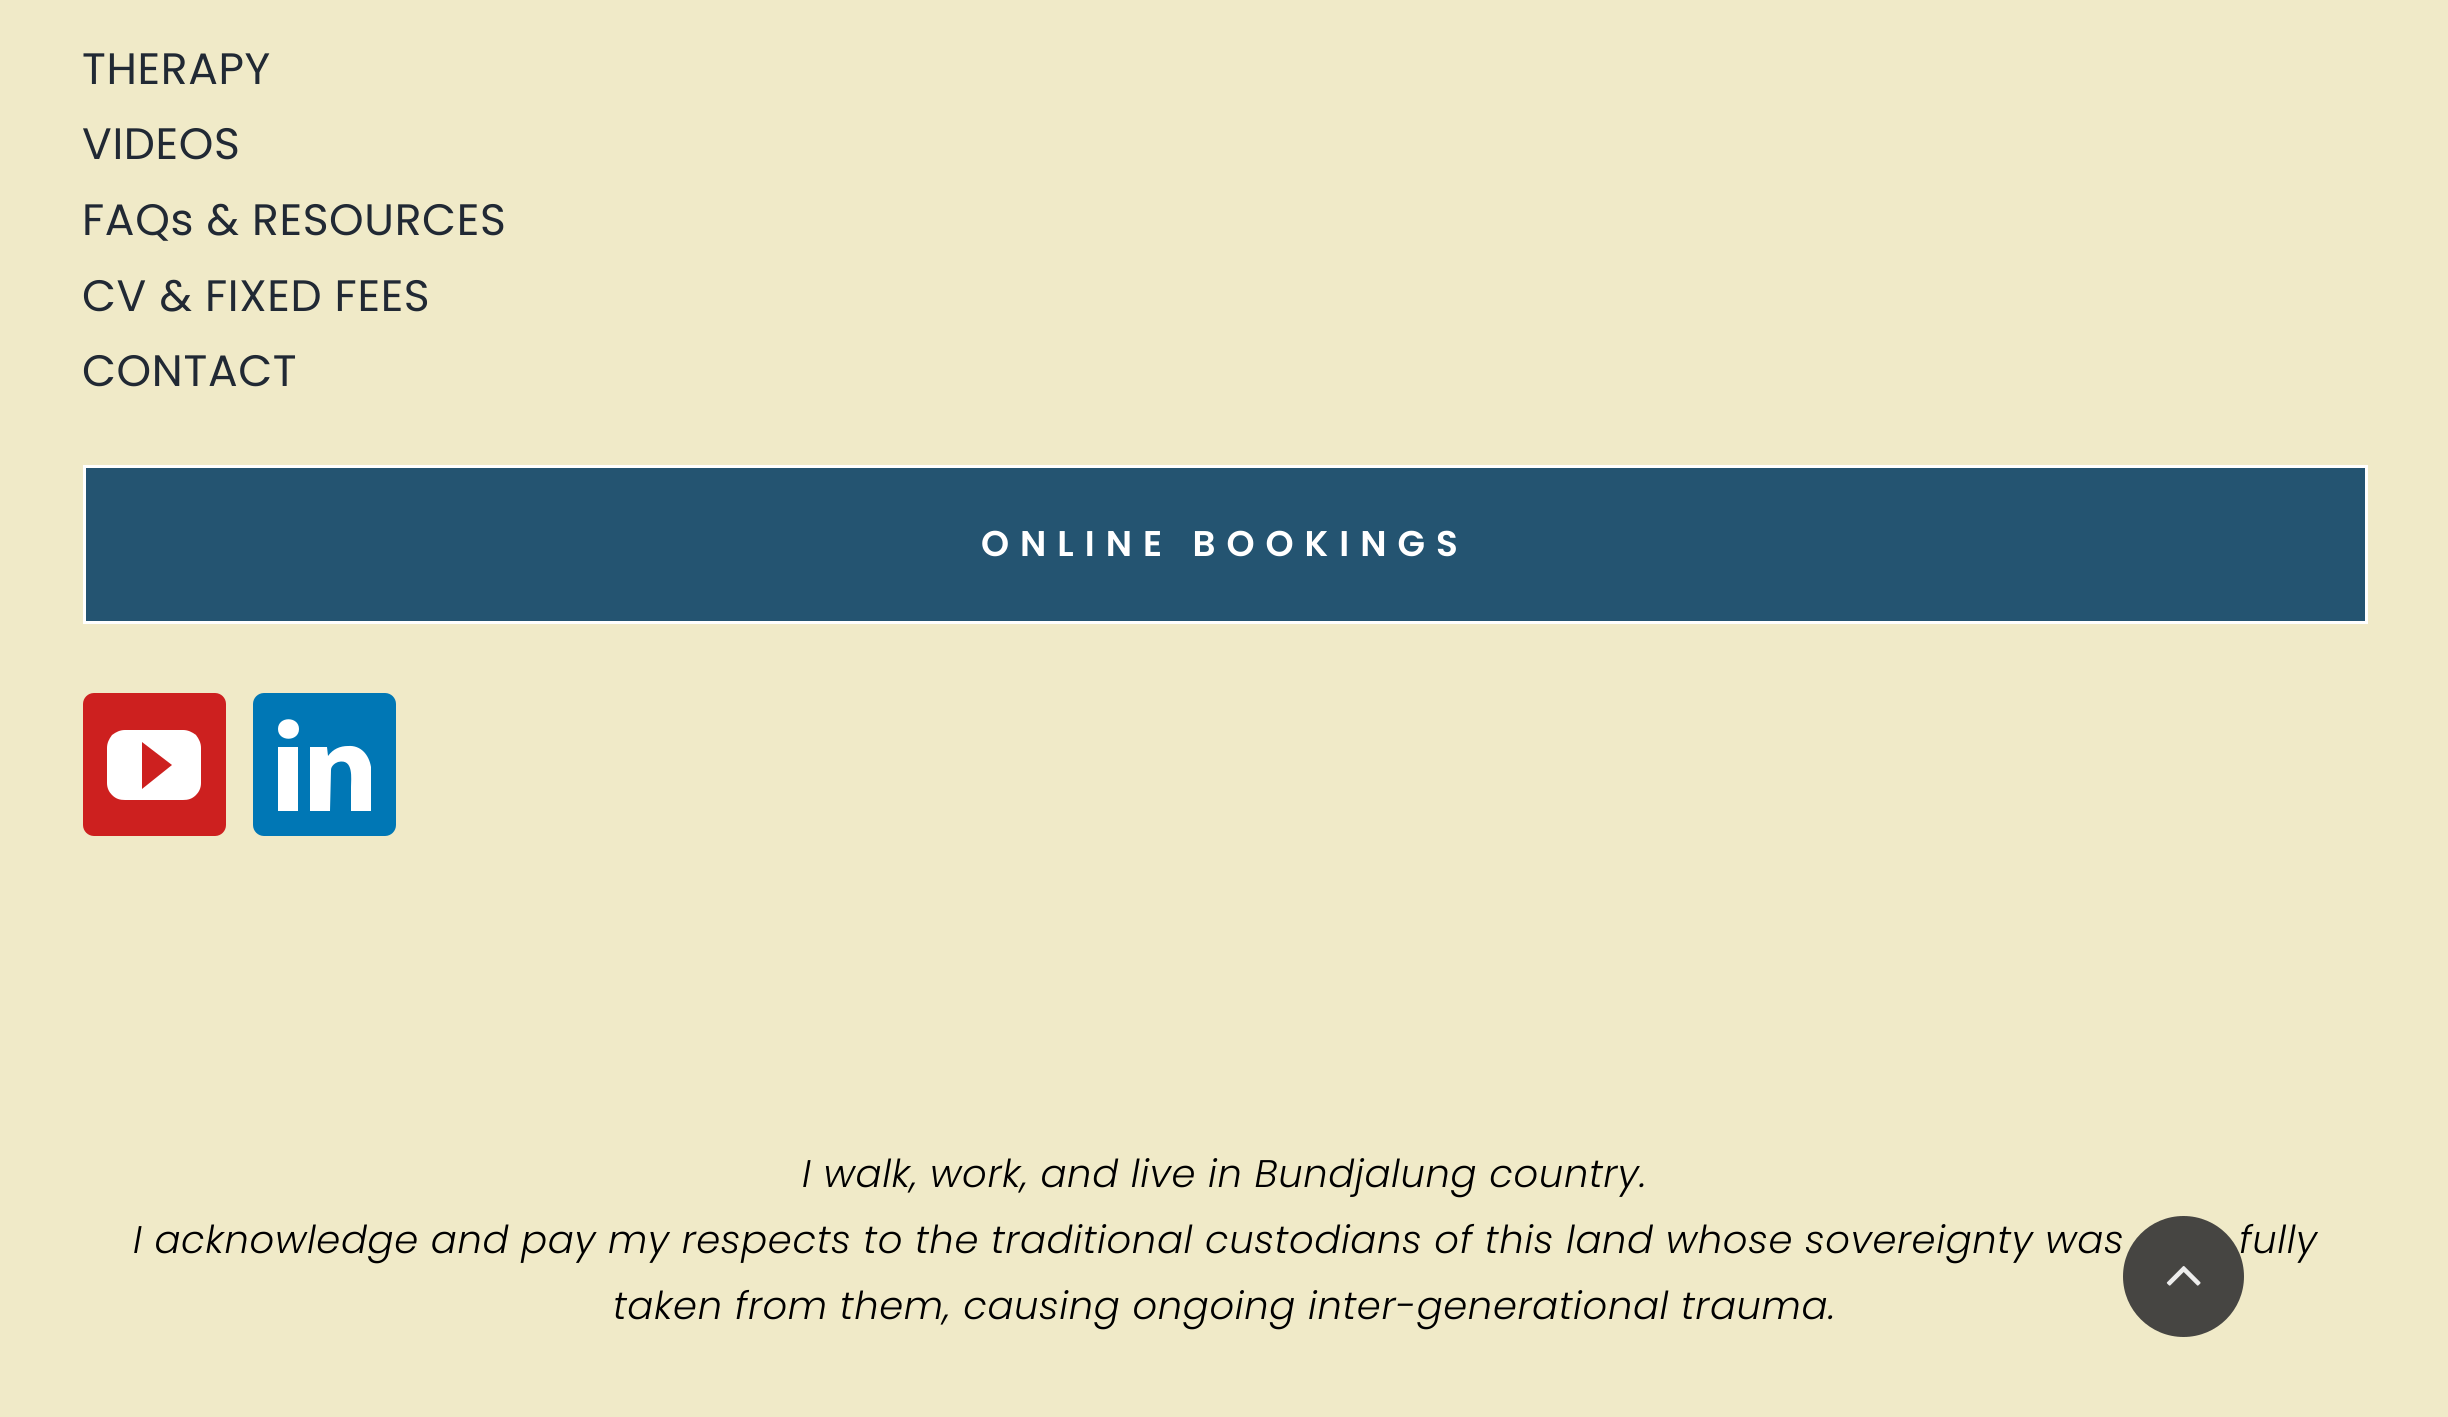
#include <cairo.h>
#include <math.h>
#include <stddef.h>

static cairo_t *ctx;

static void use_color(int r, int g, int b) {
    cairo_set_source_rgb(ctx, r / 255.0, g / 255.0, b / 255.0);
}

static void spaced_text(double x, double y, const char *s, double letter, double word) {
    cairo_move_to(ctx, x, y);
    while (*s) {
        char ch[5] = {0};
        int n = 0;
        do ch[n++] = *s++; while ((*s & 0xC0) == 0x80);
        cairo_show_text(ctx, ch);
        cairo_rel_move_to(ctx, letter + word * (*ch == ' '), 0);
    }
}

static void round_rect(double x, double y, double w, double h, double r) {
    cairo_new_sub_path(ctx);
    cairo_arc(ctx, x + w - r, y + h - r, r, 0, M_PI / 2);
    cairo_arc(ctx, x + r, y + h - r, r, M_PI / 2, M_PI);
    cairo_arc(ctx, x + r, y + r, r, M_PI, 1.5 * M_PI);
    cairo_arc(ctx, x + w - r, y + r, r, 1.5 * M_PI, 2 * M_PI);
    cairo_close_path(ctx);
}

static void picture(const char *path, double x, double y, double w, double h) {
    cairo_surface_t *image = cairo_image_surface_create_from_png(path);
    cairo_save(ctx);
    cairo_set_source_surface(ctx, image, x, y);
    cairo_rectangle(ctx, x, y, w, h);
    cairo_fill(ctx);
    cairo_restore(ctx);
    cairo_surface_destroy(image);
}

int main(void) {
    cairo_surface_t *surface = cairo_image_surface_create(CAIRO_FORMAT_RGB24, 2448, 1417);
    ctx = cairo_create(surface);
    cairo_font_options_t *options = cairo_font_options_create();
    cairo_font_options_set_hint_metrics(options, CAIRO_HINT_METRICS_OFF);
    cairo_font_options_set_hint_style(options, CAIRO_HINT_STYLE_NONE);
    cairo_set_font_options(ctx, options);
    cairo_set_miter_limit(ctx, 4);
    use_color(240, 234, 200);
    cairo_paint(ctx);
    cairo_select_font_face(ctx, "Poppins", CAIRO_FONT_SLANT_NORMAL, CAIRO_FONT_WEIGHT_NORMAL);
    cairo_set_font_size(ctx, 44);
    use_color(33, 41, 52);
    spaced_text(82, 84, "THERAPY", 0.65, 0);
    spaced_text(82, 159, "VIDEOS", 0.65, 0);
    spaced_text(82, 235, "FAQs & RESOURCES", 0.65, 0);
    spaced_text(82, 311, "CV & FIXED FEES", 0.65, 0);
    spaced_text(82, 386, "CONTACT", 0.65, 0);
    use_color(36, 84, 113);
    cairo_rectangle(ctx, 84.5, 466.5, 2282, 156);
    cairo_fill_preserve(ctx);
    use_color(255, 255, 255);
    cairo_set_line_width(ctx, 3);
    cairo_stroke(ctx);
    cairo_select_font_face(ctx, "Poppins SemiBold", CAIRO_FONT_SLANT_NORMAL, CAIRO_FONT_WEIGHT_NORMAL);
    cairo_set_font_size(ctx, 35.75);
    spaced_text(981, 556, "ONLINE BOOKINGS", 11, 0);
    use_color(205, 32, 31);
    round_rect(84.5, 694.5, 140, 140, 9.5);
    cairo_fill_preserve(ctx);
    cairo_stroke(ctx);
    use_color(255, 255, 255);
    cairo_new_path(ctx);
    cairo_move_to(ctx, 183, 730);
    cairo_line_to(ctx, 125, 730);
    cairo_curve_to(ctx, 120, 730, 116, 732, 112, 735);
    cairo_curve_to(ctx, 109, 739, 107, 743, 107, 748);
    cairo_line_to(ctx, 107, 783);
    cairo_curve_to(ctx, 107, 788, 109, 792, 112, 795);
    cairo_curve_to(ctx, 116, 799, 120, 800, 125, 800);
    cairo_line_to(ctx, 183, 800);
    cairo_curve_to(ctx, 188, 800, 192, 799, 196, 795);
    cairo_curve_to(ctx, 199, 792, 201, 788, 201, 783);
    cairo_line_to(ctx, 201, 748);
    cairo_curve_to(ctx, 201, 743, 199, 739, 196, 735);
    cairo_curve_to(ctx, 192, 732, 188, 730, 183, 730);
    cairo_close_path(ctx);
    cairo_move_to(ctx, 142, 789);
    cairo_line_to(ctx, 142, 742);
    cairo_line_to(ctx, 172, 765);
    cairo_close_path(ctx);
    cairo_fill(ctx);
    use_color(0, 119, 181);
    round_rect(254.5, 694.5, 140, 140, 9.5);
    cairo_fill_preserve(ctx);
    cairo_stroke(ctx);
    use_color(255, 255, 255);
    cairo_new_path(ctx);
    cairo_move_to(ctx, 299, 729);
    cairo_curve_to(ctx, 299, 742, 278, 742, 278, 729);
    cairo_curve_to(ctx, 278, 716, 299, 716, 299, 729);
    cairo_close_path(ctx);
    cairo_move_to(ctx, 278, 811);
    cairo_line_to(ctx, 278, 747);
    cairo_line_to(ctx, 298, 747);
    cairo_line_to(ctx, 298, 811);
    cairo_close_path(ctx);
    cairo_move_to(ctx, 310, 767);
    cairo_line_to(ctx, 310, 747);
    cairo_line_to(ctx, 327, 747);
    cairo_line_to(ctx, 328, 756);
    cairo_curve_to(ctx, 333, 749, 340, 746, 348, 746);
    cairo_curve_to(ctx, 361, 745, 369, 755, 371, 767);
    cairo_line_to(ctx, 371, 811);
    cairo_line_to(ctx, 351, 811);
    cairo_line_to(ctx, 351, 787);
    cairo_curve_to(ctx, 351, 779, 354, 758, 338, 762);
    cairo_curve_to(ctx, 335, 763, 331, 766, 331, 770);
    cairo_line_to(ctx, 330, 811);
    cairo_line_to(ctx, 310, 811);
    cairo_close_path(ctx);
    cairo_fill(ctx);
    cairo_select_font_face(ctx, "Poppins Light", CAIRO_FONT_SLANT_ITALIC, CAIRO_FONT_WEIGHT_NORMAL);
    cairo_set_font_size(ctx, 38.5);
    use_color(0, 0, 0);
    spaced_text(802, 1187, "I walk, work, and live in Bundjalung country.", 0.65, 0);
    spaced_text(133, 1253, "I acknowledge and pay my respects to the traditional custodians of this land whose sovereignty was", 0.65, 0);
    spaced_text(2239, 1253, "fully", 0.65, 0);
    spaced_text(613, 1319, "taken from them, causing ongoing inter-generational trauma.", 0.65, 0);
    cairo_set_source_rgba(ctx, 0.2, 0.2, 0.2, 0.9);
    cairo_new_path(ctx);
    cairo_arc(ctx, 2183.5, 1276.5, 60.5, 0, 2 * M_PI);
    cairo_fill(ctx);
    picture("img1.png", 2166, 1266, 35, 20);
    cairo_surface_write_to_png(surface, "result.png");
    cairo_font_options_destroy(options);
    cairo_destroy(ctx);
    cairo_surface_destroy(surface);
    return 0;
}
